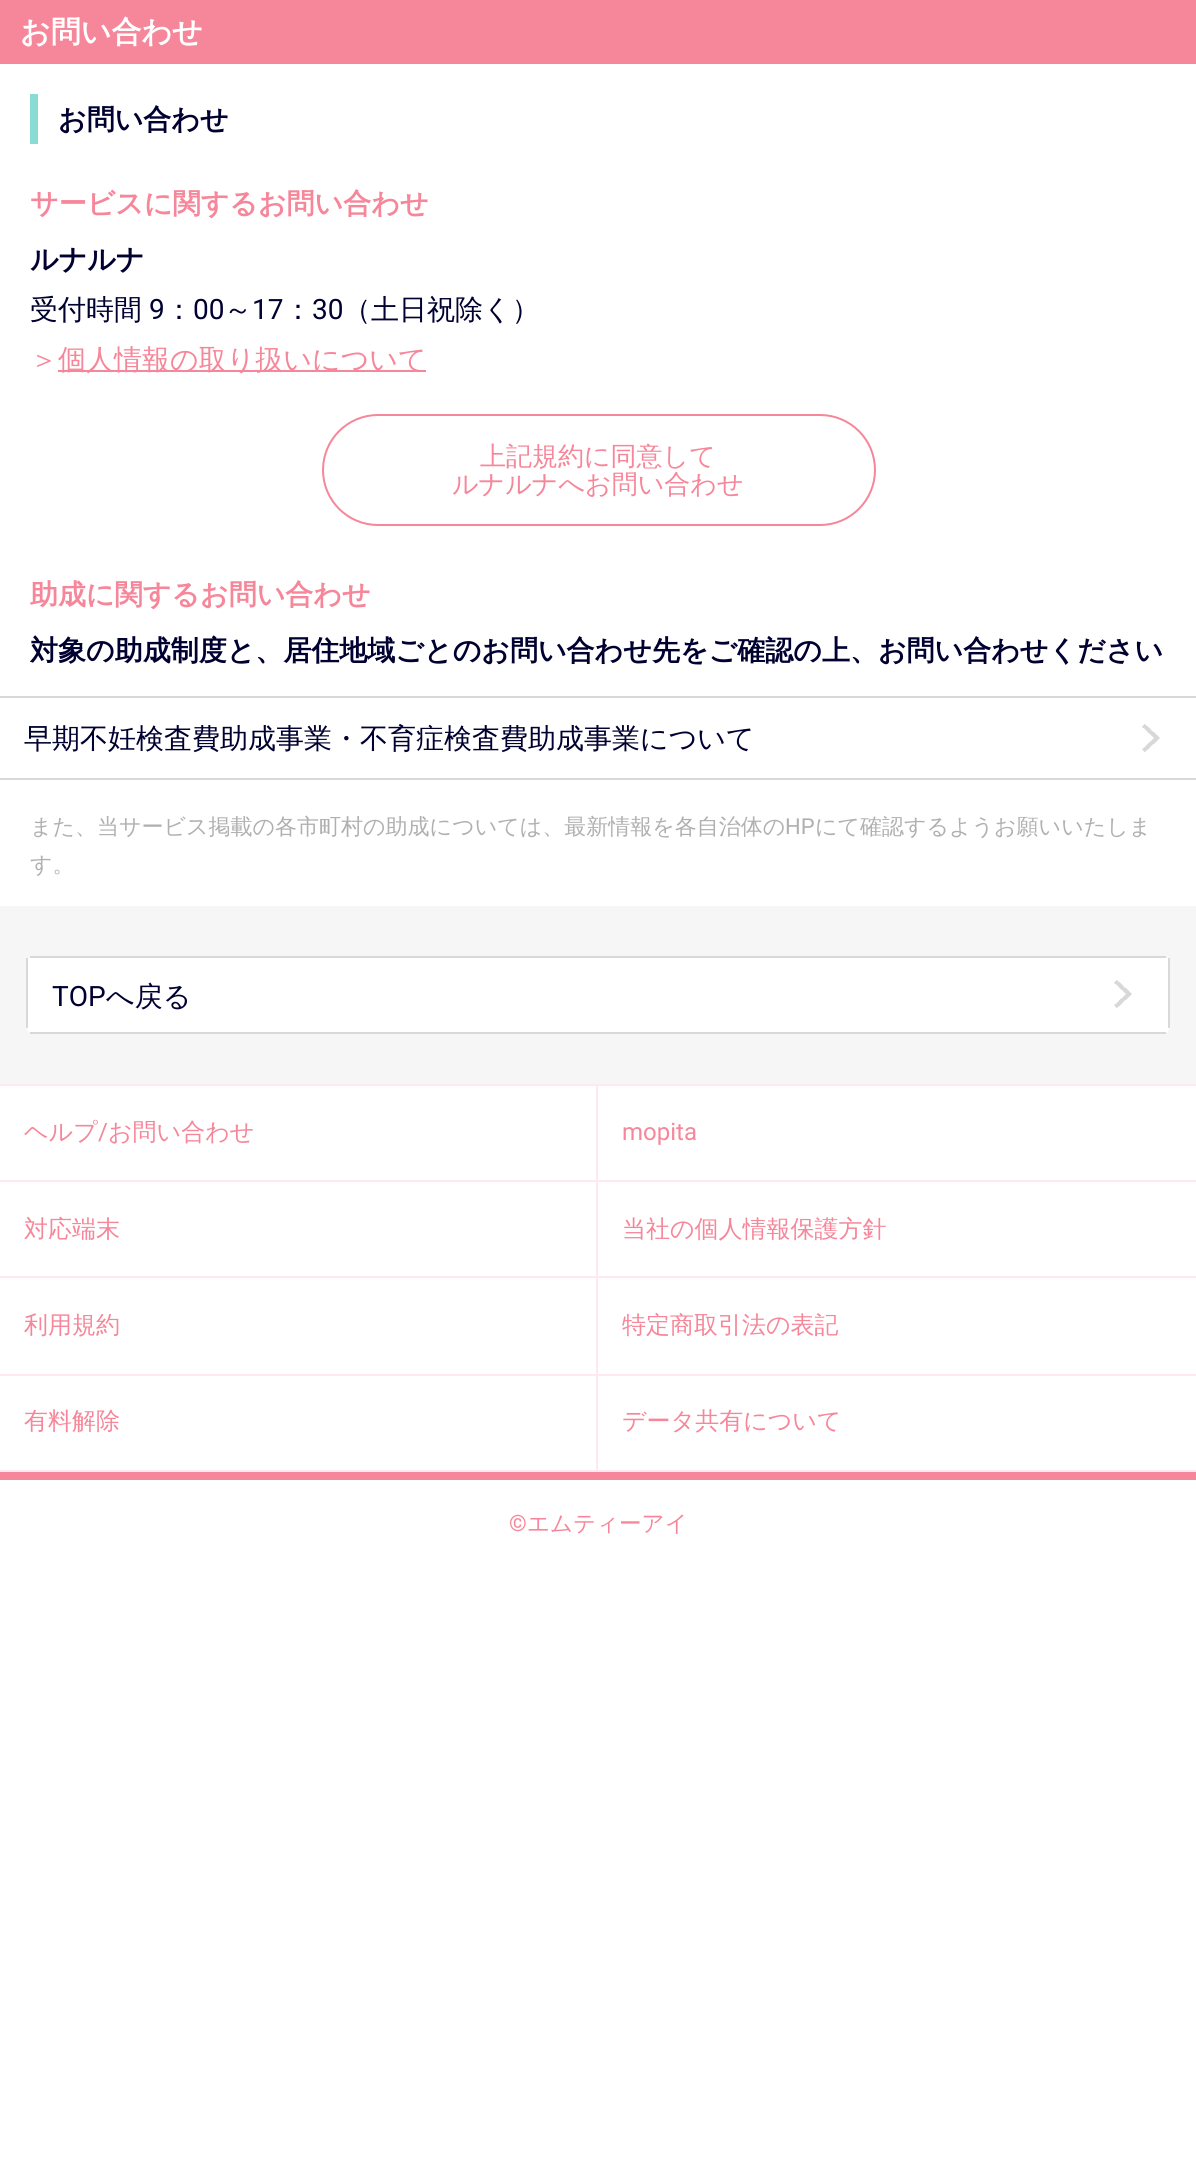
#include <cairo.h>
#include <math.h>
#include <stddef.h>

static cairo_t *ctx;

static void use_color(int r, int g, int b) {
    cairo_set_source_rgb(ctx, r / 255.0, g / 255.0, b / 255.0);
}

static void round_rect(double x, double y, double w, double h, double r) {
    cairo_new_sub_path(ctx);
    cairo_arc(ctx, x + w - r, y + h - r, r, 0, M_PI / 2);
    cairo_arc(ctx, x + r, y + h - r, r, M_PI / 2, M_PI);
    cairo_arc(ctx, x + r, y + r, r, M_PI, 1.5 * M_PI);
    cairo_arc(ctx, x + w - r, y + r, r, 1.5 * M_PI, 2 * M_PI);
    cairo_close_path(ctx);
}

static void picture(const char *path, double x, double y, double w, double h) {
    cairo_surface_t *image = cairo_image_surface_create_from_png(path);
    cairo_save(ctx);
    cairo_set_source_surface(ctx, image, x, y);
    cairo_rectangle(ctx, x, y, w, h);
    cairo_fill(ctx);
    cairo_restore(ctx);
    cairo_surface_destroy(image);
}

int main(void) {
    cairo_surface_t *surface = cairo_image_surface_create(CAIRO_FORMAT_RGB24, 1196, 2167);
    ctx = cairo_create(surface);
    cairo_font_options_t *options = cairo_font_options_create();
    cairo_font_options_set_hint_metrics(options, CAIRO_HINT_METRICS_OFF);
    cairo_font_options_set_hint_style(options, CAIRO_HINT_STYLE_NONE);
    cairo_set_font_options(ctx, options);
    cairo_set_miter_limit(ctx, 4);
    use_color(255, 255, 255);
    cairo_paint(ctx);
    use_color(246, 134, 153);
    cairo_rectangle(ctx, 0, 0, 1196, 64);
    cairo_fill(ctx);
    cairo_select_font_face(ctx, "WenQuanYi Zen Hei", CAIRO_FONT_SLANT_NORMAL, CAIRO_FONT_WEIGHT_BOLD);
    cairo_set_font_size(ctx, 30);
    use_color(255, 255, 255);
    cairo_move_to(ctx, 20, 42);
    cairo_show_text(ctx, "お問い合わせ");
    use_color(137, 220, 212);
    cairo_rectangle(ctx, 30, 94, 8, 50);
    cairo_fill(ctx);
    cairo_set_font_size(ctx, 28);
    use_color(0, 0, 49);
    cairo_move_to(ctx, 58, 129);
    cairo_show_text(ctx, "お問い合わせ");
    use_color(246, 134, 153);
    cairo_move_to(ctx, 30, 213);
    cairo_show_text(ctx, "サービスに関するお問い合わせ");
    use_color(0, 0, 49);
    cairo_move_to(ctx, 30, 269);
    cairo_show_text(ctx, "ルナルナ");
    cairo_select_font_face(ctx, "WenQuanYi Zen Hei Medium", CAIRO_FONT_SLANT_NORMAL, CAIRO_FONT_WEIGHT_NORMAL);
    cairo_move_to(ctx, 30, 319);
    cairo_show_text(ctx, "受付時間");
    cairo_select_font_face(ctx, "Roboto", CAIRO_FONT_SLANT_NORMAL, CAIRO_FONT_WEIGHT_NORMAL);
    cairo_move_to(ctx, 149, 319);
    cairo_show_text(ctx, "9");
    cairo_select_font_face(ctx, "WenQuanYi Zen Hei Medium", CAIRO_FONT_SLANT_NORMAL, CAIRO_FONT_WEIGHT_NORMAL);
    cairo_move_to(ctx, 165, 319);
    cairo_show_text(ctx, "：");
    cairo_select_font_face(ctx, "Roboto", CAIRO_FONT_SLANT_NORMAL, CAIRO_FONT_WEIGHT_NORMAL);
    cairo_move_to(ctx, 193, 319);
    cairo_show_text(ctx, "00");
    cairo_select_font_face(ctx, "WenQuanYi Zen Hei Medium", CAIRO_FONT_SLANT_NORMAL, CAIRO_FONT_WEIGHT_NORMAL);
    cairo_move_to(ctx, 224, 319);
    cairo_show_text(ctx, "～");
    cairo_select_font_face(ctx, "Roboto", CAIRO_FONT_SLANT_NORMAL, CAIRO_FONT_WEIGHT_NORMAL);
    cairo_move_to(ctx, 252, 319);
    cairo_show_text(ctx, "17");
    cairo_select_font_face(ctx, "WenQuanYi Zen Hei Medium", CAIRO_FONT_SLANT_NORMAL, CAIRO_FONT_WEIGHT_NORMAL);
    cairo_move_to(ctx, 284, 319);
    cairo_show_text(ctx, "：");
    cairo_select_font_face(ctx, "Roboto", CAIRO_FONT_SLANT_NORMAL, CAIRO_FONT_WEIGHT_NORMAL);
    cairo_move_to(ctx, 312, 319);
    cairo_show_text(ctx, "30");
    cairo_select_font_face(ctx, "WenQuanYi Zen Hei Medium", CAIRO_FONT_SLANT_NORMAL, CAIRO_FONT_WEIGHT_NORMAL);
    cairo_move_to(ctx, 343, 319);
    cairo_show_text(ctx, "（土日祝除く）");
    use_color(246, 134, 153);
    cairo_move_to(ctx, 30, 369);
    cairo_show_text(ctx, "＞");
    cairo_rectangle(ctx, 58, 370, 368, 2);
    cairo_fill(ctx);
    cairo_move_to(ctx, 58, 369);
    cairo_show_text(ctx, "個人情報の取り扱いについて");
    round_rect(323, 415, 552, 110, 55);
    cairo_stroke(ctx);
    cairo_set_font_size(ctx, 26);
    cairo_move_to(ctx, 480, 465);
    cairo_show_text(ctx, "上記規約に同意して");
    cairo_move_to(ctx, 452, 493);
    cairo_show_text(ctx, "ルナルナへお問い合わせ");
    cairo_select_font_face(ctx, "WenQuanYi Zen Hei", CAIRO_FONT_SLANT_NORMAL, CAIRO_FONT_WEIGHT_BOLD);
    cairo_set_font_size(ctx, 28);
    cairo_move_to(ctx, 30, 604);
    cairo_show_text(ctx, "助成に関するお問い合わせ");
    use_color(0, 0, 49);
    cairo_move_to(ctx, 30, 660);
    cairo_show_text(ctx, "対象の助成制度と、居住地域ごとのお問い合わせ先をご確認の上、お問い合わせください");
    use_color(216, 216, 216);
    cairo_rectangle(ctx, 0, 696, 1196, 2);
    cairo_fill(ctx);
    cairo_rectangle(ctx, 0, 778, 1196, 2);
    cairo_fill(ctx);
    cairo_select_font_face(ctx, "WenQuanYi Zen Hei Medium", CAIRO_FONT_SLANT_NORMAL, CAIRO_FONT_WEIGHT_NORMAL);
    use_color(0, 0, 49);
    cairo_move_to(ctx, 24, 748);
    cairo_show_text(ctx, "早期不妊検査費助成事業・不育症検査費助成事業について");
    picture("img1.png", 1142, 724, 18, 28);
    cairo_set_font_size(ctx, 22);
    use_color(176, 176, 176);
    cairo_move_to(ctx, 30, 834);
    cairo_show_text(ctx, "また、当サービス掲載の各市町村の助成については、最新情報を各自治体の");
    cairo_select_font_face(ctx, "Roboto", CAIRO_FONT_SLANT_NORMAL, CAIRO_FONT_WEIGHT_NORMAL);
    cairo_move_to(ctx, 785, 834);
    cairo_show_text(ctx, "HP");
    cairo_select_font_face(ctx, "WenQuanYi Zen Hei Medium", CAIRO_FONT_SLANT_NORMAL, CAIRO_FONT_WEIGHT_NORMAL);
    cairo_move_to(ctx, 815, 834);
    cairo_show_text(ctx, "にて確認するようお願いいたしま");
    cairo_move_to(ctx, 30, 872);
    cairo_show_text(ctx, "す。");
    use_color(246, 246, 246);
    cairo_rectangle(ctx, 0, 906, 1196, 178);
    cairo_fill(ctx);
    use_color(255, 255, 255);
    round_rect(26, 956, 1144, 78, 8);
    cairo_fill(ctx);
    use_color(216, 216, 216);
    cairo_rectangle(ctx, 30, 956, 1136, 2);
    cairo_fill(ctx);
    cairo_rectangle(ctx, 30, 1032, 1136, 2);
    cairo_fill(ctx);
    cairo_rectangle(ctx, 1168, 958, 2, 70);
    cairo_fill(ctx);
    cairo_rectangle(ctx, 26, 958, 2, 70);
    cairo_fill(ctx);
    cairo_select_font_face(ctx, "Roboto", CAIRO_FONT_SLANT_NORMAL, CAIRO_FONT_WEIGHT_NORMAL);
    cairo_set_font_size(ctx, 28);
    use_color(0, 0, 49);
    cairo_move_to(ctx, 52, 1006);
    cairo_show_text(ctx, "TOP");
    cairo_select_font_face(ctx, "WenQuanYi Zen Hei Medium", CAIRO_FONT_SLANT_NORMAL, CAIRO_FONT_WEIGHT_NORMAL);
    cairo_move_to(ctx, 106, 1006);
    cairo_show_text(ctx, "へ戻る");
    picture("img1.png", 1114, 980, 18, 28);
    use_color(255, 232, 238);
    cairo_rectangle(ctx, 0, 1084, 1196, 2);
    cairo_fill(ctx);
    cairo_rectangle(ctx, 596, 1086, 2, 386);
    cairo_fill(ctx);
    cairo_rectangle(ctx, 0, 1180, 1196, 2);
    cairo_fill(ctx);
    cairo_set_font_size(ctx, 24);
    use_color(246, 134, 153);
    cairo_move_to(ctx, 24, 1140);
    cairo_show_text(ctx, "ヘルプ");
    cairo_select_font_face(ctx, "Roboto", CAIRO_FONT_SLANT_NORMAL, CAIRO_FONT_WEIGHT_NORMAL);
    cairo_move_to(ctx, 98, 1140);
    cairo_show_text(ctx, "/");
    cairo_select_font_face(ctx, "WenQuanYi Zen Hei Medium", CAIRO_FONT_SLANT_NORMAL, CAIRO_FONT_WEIGHT_NORMAL);
    cairo_move_to(ctx, 108, 1140);
    cairo_show_text(ctx, "お問い合わせ");
    cairo_select_font_face(ctx, "Roboto", CAIRO_FONT_SLANT_NORMAL, CAIRO_FONT_WEIGHT_NORMAL);
    cairo_move_to(ctx, 622, 1140);
    cairo_show_text(ctx, "mopita");
    use_color(255, 232, 238);
    cairo_rectangle(ctx, 0, 1276, 1196, 2);
    cairo_fill(ctx);
    cairo_select_font_face(ctx, "WenQuanYi Zen Hei Medium", CAIRO_FONT_SLANT_NORMAL, CAIRO_FONT_WEIGHT_NORMAL);
    use_color(246, 134, 153);
    cairo_move_to(ctx, 24, 1237);
    cairo_show_text(ctx, "対応端末");
    cairo_move_to(ctx, 622, 1237);
    cairo_show_text(ctx, "当社の個人情報保護方針");
    use_color(255, 232, 238);
    cairo_rectangle(ctx, 0, 1374, 1196, 2);
    cairo_fill(ctx);
    use_color(246, 134, 153);
    cairo_move_to(ctx, 24, 1333);
    cairo_show_text(ctx, "利用規約");
    cairo_move_to(ctx, 622, 1333);
    cairo_show_text(ctx, "特定商取引法の表記");
    use_color(255, 232, 238);
    cairo_rectangle(ctx, 0, 1470, 1196, 2);
    cairo_fill(ctx);
    use_color(246, 134, 153);
    cairo_move_to(ctx, 24, 1429);
    cairo_show_text(ctx, "有料解除");
    cairo_move_to(ctx, 622, 1429);
    cairo_show_text(ctx, "データ共有について");
    cairo_rectangle(ctx, 0, 1472, 1196, 8);
    cairo_fill(ctx);
    cairo_select_font_face(ctx, "Roboto", CAIRO_FONT_SLANT_NORMAL, CAIRO_FONT_WEIGHT_NORMAL);
    cairo_set_font_size(ctx, 22.5);
    cairo_move_to(ctx, 509, 1531);
    cairo_show_text(ctx, "©");
    cairo_select_font_face(ctx, "WenQuanYi Zen Hei Medium", CAIRO_FONT_SLANT_NORMAL, CAIRO_FONT_WEIGHT_NORMAL);
    cairo_move_to(ctx, 527, 1531);
    cairo_show_text(ctx, "エムティーアイ");
    cairo_surface_write_to_png(surface, "result.png");
    cairo_font_options_destroy(options);
    cairo_destroy(ctx);
    cairo_surface_destroy(surface);
    return 0;
}
